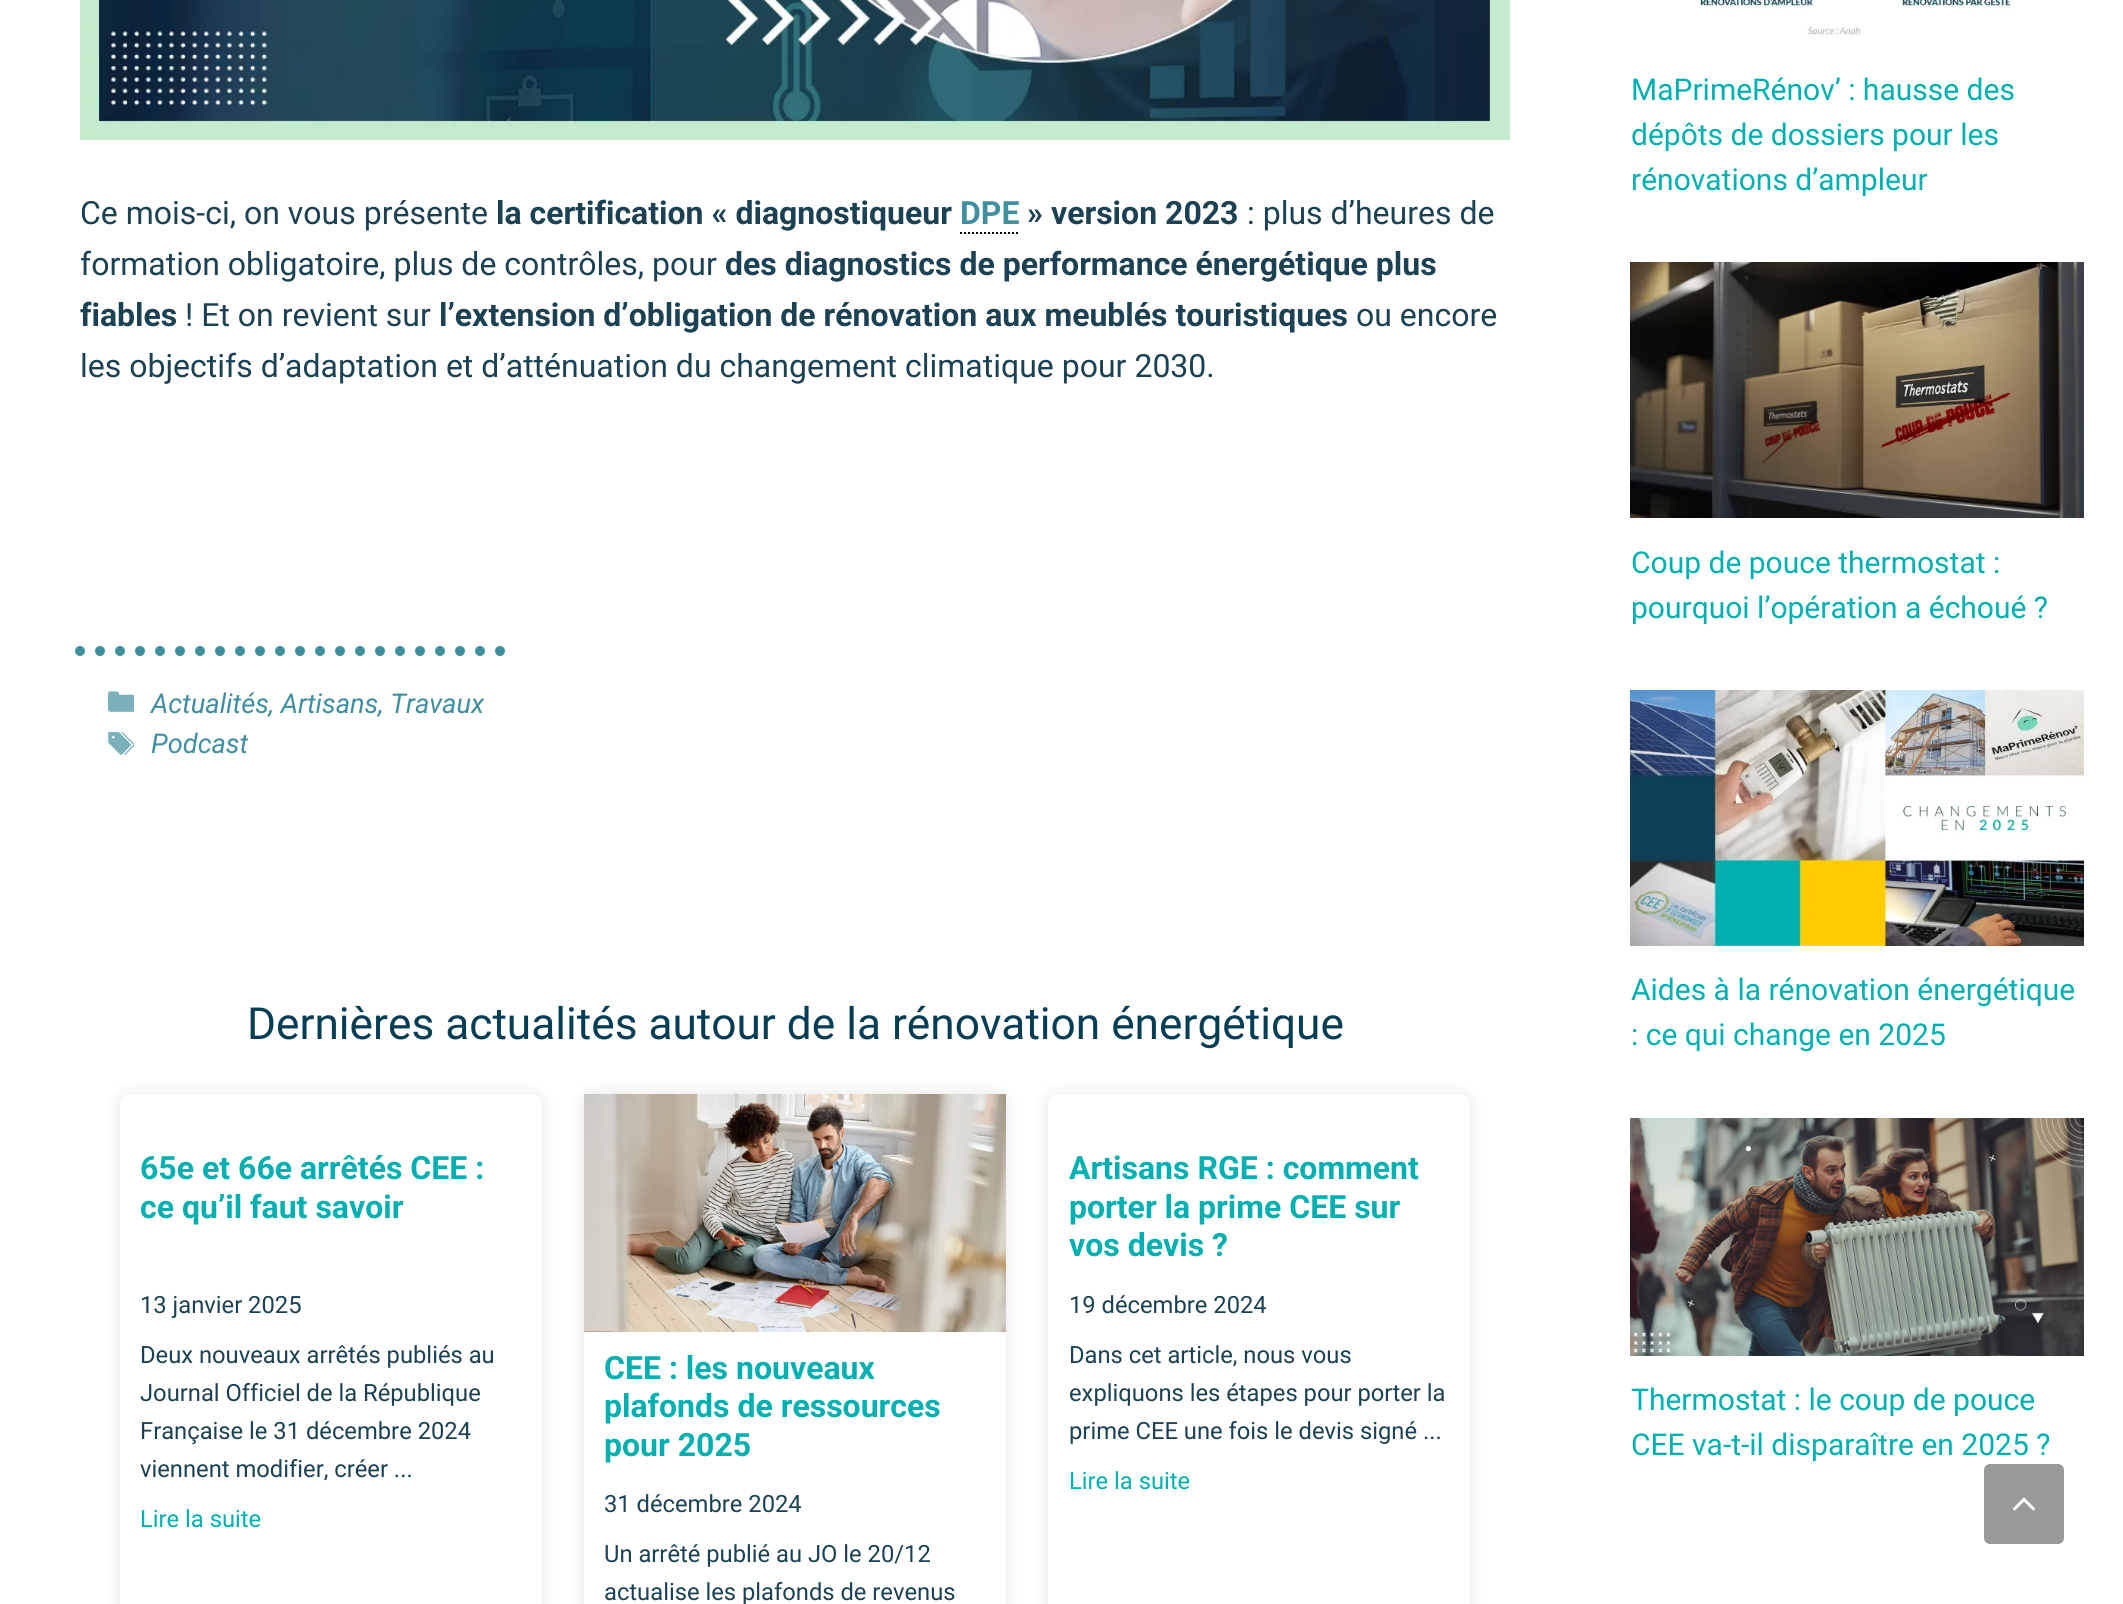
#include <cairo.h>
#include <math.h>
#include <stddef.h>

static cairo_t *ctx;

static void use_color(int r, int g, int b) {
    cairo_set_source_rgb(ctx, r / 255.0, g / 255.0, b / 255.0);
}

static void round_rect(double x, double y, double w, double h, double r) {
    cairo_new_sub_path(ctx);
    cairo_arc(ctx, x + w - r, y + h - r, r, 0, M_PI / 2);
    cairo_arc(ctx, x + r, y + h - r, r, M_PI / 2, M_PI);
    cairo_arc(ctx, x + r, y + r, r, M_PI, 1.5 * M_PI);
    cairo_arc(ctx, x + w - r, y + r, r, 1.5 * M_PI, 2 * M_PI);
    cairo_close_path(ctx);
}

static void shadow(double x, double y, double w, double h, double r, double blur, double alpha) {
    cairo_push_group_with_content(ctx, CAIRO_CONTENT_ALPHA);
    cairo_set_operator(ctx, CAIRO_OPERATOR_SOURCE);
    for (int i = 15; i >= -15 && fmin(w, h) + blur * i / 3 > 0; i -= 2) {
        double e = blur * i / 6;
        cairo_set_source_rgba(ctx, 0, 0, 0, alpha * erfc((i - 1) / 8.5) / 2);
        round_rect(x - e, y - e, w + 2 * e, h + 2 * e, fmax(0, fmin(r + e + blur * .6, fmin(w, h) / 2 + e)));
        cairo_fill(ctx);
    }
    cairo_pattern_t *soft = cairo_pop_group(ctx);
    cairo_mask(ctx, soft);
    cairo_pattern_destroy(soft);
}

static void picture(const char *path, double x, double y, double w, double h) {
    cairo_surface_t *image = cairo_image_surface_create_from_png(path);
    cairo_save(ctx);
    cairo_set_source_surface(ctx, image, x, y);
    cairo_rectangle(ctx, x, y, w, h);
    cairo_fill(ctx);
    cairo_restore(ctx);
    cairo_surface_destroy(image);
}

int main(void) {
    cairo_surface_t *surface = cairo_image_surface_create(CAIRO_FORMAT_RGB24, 2123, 1604);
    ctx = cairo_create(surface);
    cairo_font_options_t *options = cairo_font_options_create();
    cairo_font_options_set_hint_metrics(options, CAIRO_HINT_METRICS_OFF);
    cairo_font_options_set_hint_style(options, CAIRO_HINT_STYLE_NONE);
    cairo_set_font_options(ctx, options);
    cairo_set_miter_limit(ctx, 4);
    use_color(255, 255, 255);
    cairo_paint(ctx);
    picture("img1.png", 80, 0, 1430, 140);
    cairo_select_font_face(ctx, "Roboto", CAIRO_FONT_SLANT_NORMAL, CAIRO_FONT_WEIGHT_NORMAL);
    cairo_set_font_size(ctx, 32);
    use_color(27, 65, 83);
    cairo_move_to(ctx, 80, 224);
    cairo_show_text(ctx, "Ce mois-ci, on vous présente");
    cairo_select_font_face(ctx, "Roboto", CAIRO_FONT_SLANT_NORMAL, CAIRO_FONT_WEIGHT_BOLD);
    cairo_move_to(ctx, 496, 224);
    cairo_show_text(ctx, "la certification « diagnostiqueur");
    use_color(64, 143, 158);
    cairo_move_to(ctx, 960, 224);
    cairo_show_text(ctx, "DPE");
    cairo_new_path(ctx);
    cairo_move_to(ctx, 960, 233);
    cairo_line_to(ctx, 1020, 233);
    use_color(0, 0, 0);
    cairo_set_dash(ctx, (double[]){2, 2}, 2, 0);
    cairo_stroke(ctx);
    use_color(27, 65, 83);
    cairo_move_to(ctx, 1027, 224);
    cairo_show_text(ctx, "» version 2023");
    cairo_select_font_face(ctx, "Roboto", CAIRO_FONT_SLANT_NORMAL, CAIRO_FONT_WEIGHT_NORMAL);
    cairo_move_to(ctx, 1247, 224);
    cairo_show_text(ctx, ": plus d’heures de");
    cairo_move_to(ctx, 80, 275);
    cairo_show_text(ctx, "formation obligatoire, plus de contrôles, pour");
    cairo_select_font_face(ctx, "Roboto", CAIRO_FONT_SLANT_NORMAL, CAIRO_FONT_WEIGHT_BOLD);
    cairo_move_to(ctx, 725, 275);
    cairo_show_text(ctx, "des diagnostics de performance énergétique plus");
    cairo_move_to(ctx, 80, 326);
    cairo_show_text(ctx, "fiables");
    cairo_select_font_face(ctx, "Roboto", CAIRO_FONT_SLANT_NORMAL, CAIRO_FONT_WEIGHT_NORMAL);
    cairo_move_to(ctx, 185, 326);
    cairo_show_text(ctx, "! Et on revient sur");
    cairo_select_font_face(ctx, "Roboto", CAIRO_FONT_SLANT_NORMAL, CAIRO_FONT_WEIGHT_BOLD);
    cairo_move_to(ctx, 439, 326);
    cairo_show_text(ctx, "l’extension d’obligation de rénovation aux meublés touristiques");
    cairo_select_font_face(ctx, "Roboto", CAIRO_FONT_SLANT_NORMAL, CAIRO_FONT_WEIGHT_NORMAL);
    cairo_move_to(ctx, 1356, 326);
    cairo_show_text(ctx, "ou encore");
    cairo_move_to(ctx, 80, 377);
    cairo_show_text(ctx, "les objectifs d’adaptation et d’atténuation du changement climatique pour 2030.");
    cairo_new_path(ctx);
    cairo_move_to(ctx, 80, 651);
    cairo_line_to(ctx, 510, 651);
    use_color(64, 143, 158);
    cairo_set_line_width(ctx, 10);
    cairo_set_line_cap(ctx, CAIRO_LINE_CAP_ROUND);
    cairo_set_dash(ctx, (double[]){0, 20}, 2, 0);
    cairo_stroke(ctx);
    picture("img2.png", 108, 691, 26, 21);
    cairo_select_font_face(ctx, "Roboto", CAIRO_FONT_SLANT_ITALIC, CAIRO_FONT_WEIGHT_NORMAL);
    cairo_set_font_size(ctx, 27.25);
    cairo_move_to(ctx, 151, 713);
    cairo_show_text(ctx, "Actualités, Artisans, Travaux");
    picture("img3.png", 108, 732, 26, 23);
    cairo_move_to(ctx, 151, 753);
    cairo_show_text(ctx, "Podcast");
    cairo_select_font_face(ctx, "Roboto", CAIRO_FONT_SLANT_NORMAL, CAIRO_FONT_WEIGHT_NORMAL);
    cairo_set_font_size(ctx, 44.2);
    use_color(5, 62, 84);
    cairo_move_to(ctx, 247, 1039);
    cairo_show_text(ctx, "Dernières actualités autour de la rénovation énergétique");
    use_color(0, 0, 0);
    shadow(120, 1094, 422, 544, 10, 8, 0.1);
    use_color(255, 255, 255);
    round_rect(120, 1094, 422, 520, 10);
    cairo_fill(ctx);
    cairo_select_font_face(ctx, "Roboto", CAIRO_FONT_SLANT_NORMAL, CAIRO_FONT_WEIGHT_BOLD);
    cairo_set_font_size(ctx, 32);
    use_color(0, 176, 176);
    cairo_move_to(ctx, 140, 1179);
    cairo_show_text(ctx, "65e et 66e arrêtés CEE :");
    cairo_move_to(ctx, 140, 1218);
    cairo_show_text(ctx, "ce qu’il faut savoir");
    cairo_select_font_face(ctx, "Roboto", CAIRO_FONT_SLANT_NORMAL, CAIRO_FONT_WEIGHT_NORMAL);
    cairo_set_font_size(ctx, 23.75);
    use_color(27, 65, 83);
    cairo_move_to(ctx, 140, 1313);
    cairo_show_text(ctx, "13 janvier 2025");
    cairo_move_to(ctx, 140, 1363);
    cairo_show_text(ctx, "Deux nouveaux arrêtés publiés au");
    cairo_move_to(ctx, 140, 1401);
    cairo_show_text(ctx, "Journal Officiel de la République");
    cairo_move_to(ctx, 140, 1439);
    cairo_show_text(ctx, "Française le 31 décembre 2024");
    cairo_move_to(ctx, 140, 1477);
    cairo_show_text(ctx, "viennent modifier, créer ...");
    use_color(0, 176, 176);
    cairo_move_to(ctx, 140, 1527);
    cairo_show_text(ctx, "Lire la suite");
    use_color(0, 0, 0);
    shadow(584, 1094, 422, 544, 10, 8, 0.1);
    use_color(255, 255, 255);
    cairo_rectangle(ctx, 584, 1332, 422, 272);
    cairo_fill(ctx);
    picture("img4.png", 584, 1094, 422, 238);
    cairo_select_font_face(ctx, "Roboto", CAIRO_FONT_SLANT_NORMAL, CAIRO_FONT_WEIGHT_BOLD);
    cairo_set_font_size(ctx, 32);
    use_color(0, 176, 176);
    cairo_move_to(ctx, 604, 1379);
    cairo_show_text(ctx, "CEE : les nouveaux");
    cairo_move_to(ctx, 604, 1417);
    cairo_show_text(ctx, "plafonds de ressources");
    cairo_move_to(ctx, 604, 1456);
    cairo_show_text(ctx, "pour 2025");
    cairo_select_font_face(ctx, "Roboto", CAIRO_FONT_SLANT_NORMAL, CAIRO_FONT_WEIGHT_NORMAL);
    cairo_set_font_size(ctx, 23.75);
    use_color(27, 65, 83);
    cairo_move_to(ctx, 604, 1512);
    cairo_show_text(ctx, "31 décembre 2024");
    cairo_move_to(ctx, 604, 1562);
    cairo_show_text(ctx, "Un arrêté publié au JO le 20/12");
    cairo_move_to(ctx, 604, 1600);
    cairo_show_text(ctx, "actualise les plafonds de revenus");
    use_color(0, 0, 0);
    shadow(1048, 1094, 422, 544, 10, 8, 0.1);
    use_color(255, 255, 255);
    round_rect(1048, 1094, 422, 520, 10);
    cairo_fill(ctx);
    cairo_select_font_face(ctx, "Roboto", CAIRO_FONT_SLANT_NORMAL, CAIRO_FONT_WEIGHT_BOLD);
    cairo_set_font_size(ctx, 32);
    use_color(0, 176, 176);
    cairo_move_to(ctx, 1069, 1179);
    cairo_show_text(ctx, "Artisans RGE : comment");
    cairo_move_to(ctx, 1069, 1218);
    cairo_show_text(ctx, "porter la prime CEE sur");
    cairo_move_to(ctx, 1069, 1256);
    cairo_show_text(ctx, "vos devis ?");
    cairo_select_font_face(ctx, "Roboto", CAIRO_FONT_SLANT_NORMAL, CAIRO_FONT_WEIGHT_NORMAL);
    cairo_set_font_size(ctx, 23.75);
    use_color(27, 65, 83);
    cairo_move_to(ctx, 1069, 1313);
    cairo_show_text(ctx, "19 décembre 2024");
    cairo_move_to(ctx, 1069, 1363);
    cairo_show_text(ctx, "Dans cet article, nous vous");
    cairo_move_to(ctx, 1069, 1401);
    cairo_show_text(ctx, "expliquons les étapes pour porter la");
    cairo_move_to(ctx, 1069, 1439);
    cairo_show_text(ctx, "prime CEE une fois le devis signé ...");
    use_color(0, 176, 176);
    cairo_move_to(ctx, 1069, 1489);
    cairo_show_text(ctx, "Lire la suite");
    picture("img5.png", 1699, 0, 313, 37);
    cairo_set_font_size(ctx, 30);
    cairo_move_to(ctx, 1631, 100);
    cairo_show_text(ctx, "MaPrimeRénov’ : hausse des");
    cairo_move_to(ctx, 1631, 145);
    cairo_show_text(ctx, "dépôts de dossiers pour les");
    cairo_move_to(ctx, 1631, 190);
    cairo_show_text(ctx, "rénovations d’ampleur");
    picture("img6.png", 1630, 262, 454, 256);
    cairo_move_to(ctx, 1631, 573);
    cairo_show_text(ctx, "Coup de pouce thermostat :");
    cairo_move_to(ctx, 1631, 618);
    cairo_show_text(ctx, "pourquoi l’opération a échoué ?");
    picture("img7.png", 1630, 690, 454, 256);
    cairo_move_to(ctx, 1631, 1000);
    cairo_show_text(ctx, "Aides à la rénovation énergétique");
    cairo_move_to(ctx, 1631, 1045);
    cairo_show_text(ctx, ": ce qui change en 2025");
    picture("img8.png", 1630, 1118, 454, 238);
    cairo_move_to(ctx, 1631, 1410);
    cairo_show_text(ctx, "Thermostat : le coup de pouce");
    cairo_move_to(ctx, 1631, 1455);
    cairo_show_text(ctx, "CEE va-t-il disparaître en 2025 ?");
    use_color(153, 153, 153);
    round_rect(1984, 1464, 80, 80, 6);
    cairo_fill(ctx);
    picture("img9.png", 2013, 1497, 22, 14);
    cairo_surface_write_to_png(surface, "result.png");
    cairo_font_options_destroy(options);
    cairo_destroy(ctx);
    cairo_surface_destroy(surface);
    return 0;
}
